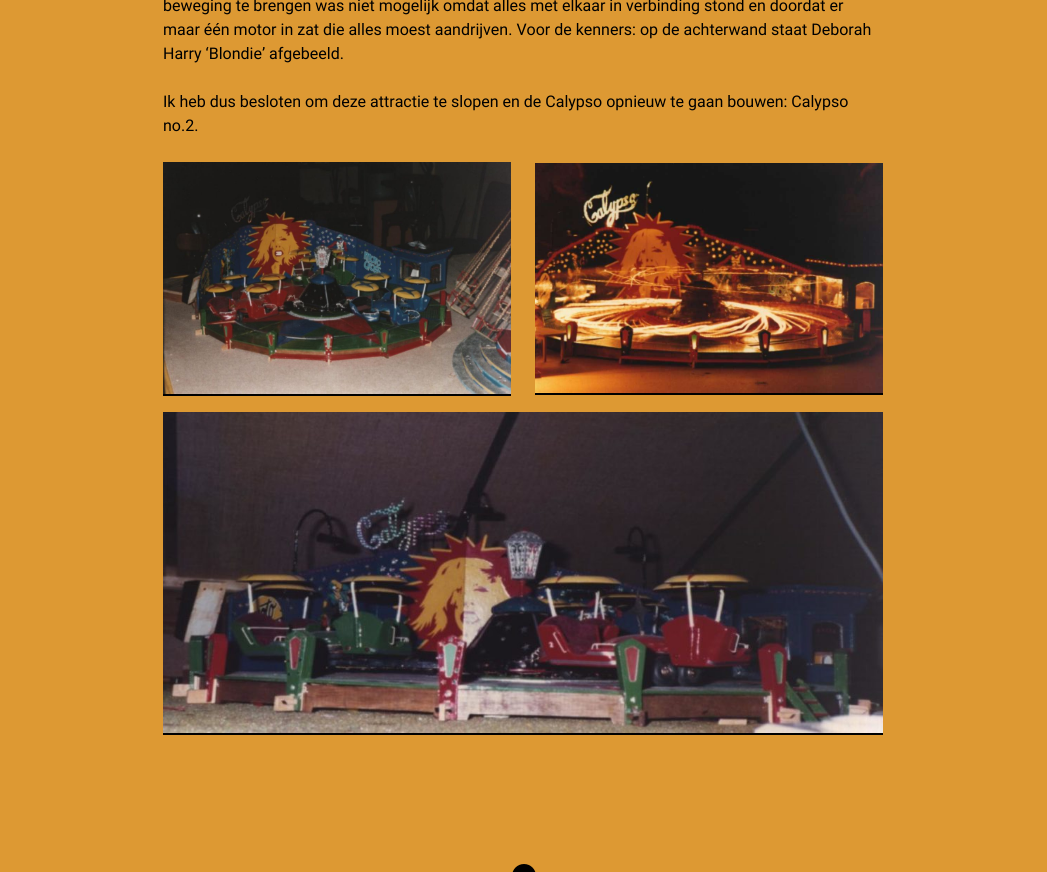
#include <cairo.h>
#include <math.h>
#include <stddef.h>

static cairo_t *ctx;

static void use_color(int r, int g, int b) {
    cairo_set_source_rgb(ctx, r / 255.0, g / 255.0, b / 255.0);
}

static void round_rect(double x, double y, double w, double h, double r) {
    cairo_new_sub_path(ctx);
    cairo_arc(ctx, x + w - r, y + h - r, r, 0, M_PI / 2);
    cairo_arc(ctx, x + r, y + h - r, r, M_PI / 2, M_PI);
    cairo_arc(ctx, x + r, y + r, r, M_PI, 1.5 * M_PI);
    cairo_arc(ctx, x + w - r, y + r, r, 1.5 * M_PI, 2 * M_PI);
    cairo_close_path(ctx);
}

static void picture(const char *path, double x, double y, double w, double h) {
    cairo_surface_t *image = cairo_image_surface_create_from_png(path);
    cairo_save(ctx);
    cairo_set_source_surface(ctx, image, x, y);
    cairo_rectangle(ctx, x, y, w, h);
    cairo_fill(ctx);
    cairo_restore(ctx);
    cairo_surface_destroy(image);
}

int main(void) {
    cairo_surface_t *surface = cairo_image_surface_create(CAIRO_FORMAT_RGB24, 1047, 872);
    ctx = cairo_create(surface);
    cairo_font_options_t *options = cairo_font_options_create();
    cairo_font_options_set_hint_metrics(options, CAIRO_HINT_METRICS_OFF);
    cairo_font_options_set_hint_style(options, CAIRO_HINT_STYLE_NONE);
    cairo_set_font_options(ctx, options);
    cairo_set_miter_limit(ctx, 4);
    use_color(221, 153, 51);
    cairo_paint(ctx);
    cairo_select_font_face(ctx, "Roboto", CAIRO_FONT_SLANT_NORMAL, CAIRO_FONT_WEIGHT_NORMAL);
    cairo_set_font_size(ctx, 16);
    use_color(0, 0, 0);
    cairo_move_to(ctx, 163, 11);
    cairo_show_text(ctx, "beweging te brengen was niet mogelijk omdat alles met elkaar in verbinding stond en doordat er");
    cairo_move_to(ctx, 163, 35);
    cairo_show_text(ctx, "maar één motor in zat die alles moest aandrijven. Voor de kenners: op de achterwand staat Deborah");
    cairo_move_to(ctx, 163, 59);
    cairo_show_text(ctx, "Harry ‘Blondie’ afgebeeld.");
    cairo_move_to(ctx, 163, 107);
    cairo_show_text(ctx, "Ik heb dus besloten om deze attractie te slopen en de Calypso opnieuw te gaan bouwen: Calypso");
    cairo_move_to(ctx, 163, 131);
    cairo_show_text(ctx, "no.2.");
    cairo_rectangle(ctx, 163, 394, 348, 2);
    cairo_fill(ctx);
    picture("img1.png", 163, 162, 348, 232);
    cairo_rectangle(ctx, 535, 393, 348, 2);
    cairo_fill(ctx);
    picture("img2.png", 535, 163, 348, 230);
    cairo_rectangle(ctx, 163, 733, 720, 2);
    cairo_fill(ctx);
    picture("img3.png", 163, 412, 720, 321);
    round_rect(512, 864, 24, 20, 12);
    cairo_fill(ctx);
    cairo_surface_write_to_png(surface, "result.png");
    cairo_font_options_destroy(options);
    cairo_destroy(ctx);
    cairo_surface_destroy(surface);
    return 0;
}
